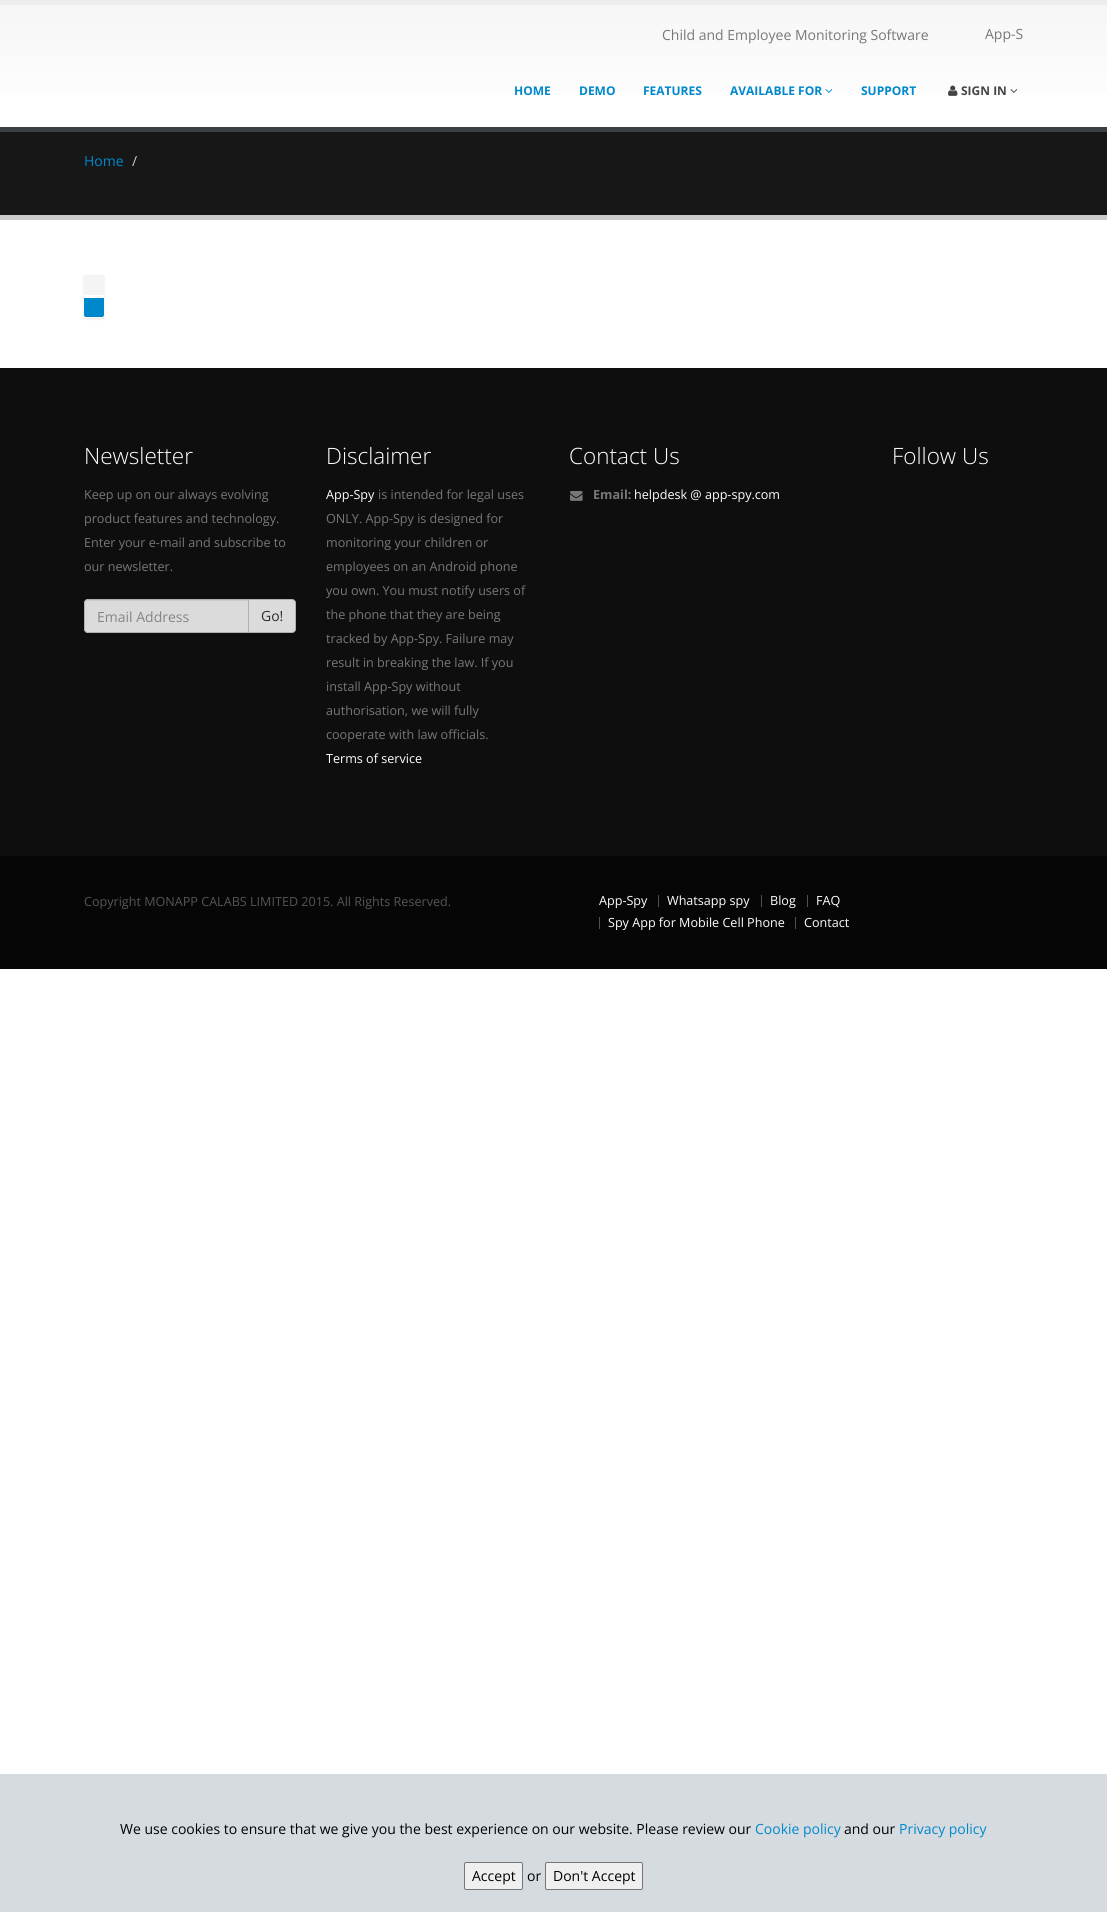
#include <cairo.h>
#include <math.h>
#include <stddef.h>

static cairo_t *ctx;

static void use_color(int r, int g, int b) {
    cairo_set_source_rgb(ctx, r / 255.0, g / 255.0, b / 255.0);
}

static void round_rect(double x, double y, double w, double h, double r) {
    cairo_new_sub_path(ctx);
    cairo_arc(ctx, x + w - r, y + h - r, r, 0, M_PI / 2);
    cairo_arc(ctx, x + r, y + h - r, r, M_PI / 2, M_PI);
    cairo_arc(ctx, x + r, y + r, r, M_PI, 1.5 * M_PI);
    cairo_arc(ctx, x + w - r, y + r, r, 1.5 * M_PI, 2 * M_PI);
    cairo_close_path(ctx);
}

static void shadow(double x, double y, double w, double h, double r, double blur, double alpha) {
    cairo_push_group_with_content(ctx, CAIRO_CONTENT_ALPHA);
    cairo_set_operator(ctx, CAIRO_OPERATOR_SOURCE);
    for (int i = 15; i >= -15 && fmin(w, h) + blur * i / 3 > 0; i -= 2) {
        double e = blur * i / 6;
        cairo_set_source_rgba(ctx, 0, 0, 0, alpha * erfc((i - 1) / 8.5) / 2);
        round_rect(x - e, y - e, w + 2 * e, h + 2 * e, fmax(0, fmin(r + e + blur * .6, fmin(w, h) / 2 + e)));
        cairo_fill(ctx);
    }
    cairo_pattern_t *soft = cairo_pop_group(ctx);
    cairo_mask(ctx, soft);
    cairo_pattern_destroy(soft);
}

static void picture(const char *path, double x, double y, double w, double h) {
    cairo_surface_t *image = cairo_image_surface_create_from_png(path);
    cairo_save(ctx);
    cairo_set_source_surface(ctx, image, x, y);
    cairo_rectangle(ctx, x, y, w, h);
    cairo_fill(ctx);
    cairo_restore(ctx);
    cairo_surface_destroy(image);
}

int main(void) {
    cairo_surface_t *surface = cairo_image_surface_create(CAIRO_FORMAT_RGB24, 1107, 1912);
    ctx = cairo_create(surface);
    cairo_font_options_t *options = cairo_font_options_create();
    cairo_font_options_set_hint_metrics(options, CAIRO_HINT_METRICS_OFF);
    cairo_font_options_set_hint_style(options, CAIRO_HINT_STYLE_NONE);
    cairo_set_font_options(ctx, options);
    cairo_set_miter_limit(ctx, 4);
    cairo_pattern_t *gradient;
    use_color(255, 255, 255);
    cairo_paint(ctx);
    gradient = cairo_pattern_create_linear(554, 5, 554, 127);
    cairo_pattern_add_color_stop_rgba(gradient, 0, 0.965, 0.965, 0.965, 1);
    cairo_pattern_add_color_stop_rgba(gradient, 1, 1, 1, 1, 1);
    cairo_set_source(ctx, gradient);
    cairo_pattern_destroy(gradient);
    cairo_rectangle(ctx, 0, 5, 1107, 88);
    cairo_fill(ctx);
    use_color(237, 237, 237);
    cairo_rectangle(ctx, 0, 0, 1107, 5);
    cairo_fill(ctx);
    cairo_select_font_face(ctx, "Open Sans", CAIRO_FONT_SLANT_NORMAL, CAIRO_FONT_WEIGHT_NORMAL);
    cairo_set_font_size(ctx, 14);
    use_color(119, 119, 119);
    cairo_move_to(ctx, 662, 40);
    cairo_show_text(ctx, "Child and Employee Monitoring Software");
    cairo_move_to(ctx, 985, 39);
    cairo_show_text(ctx, "App-S");
    cairo_select_font_face(ctx, "Open Sans", CAIRO_FONT_SLANT_NORMAL, CAIRO_FONT_WEIGHT_BOLD);
    cairo_set_font_size(ctx, 12);
    use_color(0, 136, 204);
    cairo_move_to(ctx, 514, 95);
    cairo_show_text(ctx, "HOME");
    cairo_move_to(ctx, 579, 95);
    cairo_show_text(ctx, "DEMO");
    cairo_move_to(ctx, 643, 95);
    cairo_show_text(ctx, "FEATURES");
    cairo_move_to(ctx, 730, 95);
    cairo_show_text(ctx, "AVAILABLE FOR");
    picture("img1.png", 825, 89, 8, 4);
    cairo_move_to(ctx, 861, 95);
    cairo_show_text(ctx, "SUPPORT");
    picture("img2.png", 948, 85, 10, 11);
    use_color(68, 68, 68);
    cairo_move_to(ctx, 961, 95);
    cairo_show_text(ctx, "SIGN IN");
    picture("img3.png", 1010, 89, 8, 4);
    use_color(23, 23, 23);
    cairo_rectangle(ctx, 0, 132, 1107, 83);
    cairo_fill(ctx);
    use_color(56, 64, 69);
    cairo_rectangle(ctx, 0, 127, 1107, 5);
    cairo_fill(ctx);
    use_color(204, 204, 204);
    cairo_rectangle(ctx, 0, 215, 1107, 5);
    cairo_fill(ctx);
    cairo_select_font_face(ctx, "Open Sans", CAIRO_FONT_SLANT_NORMAL, CAIRO_FONT_WEIGHT_NORMAL);
    cairo_set_font_size(ctx, 14);
    use_color(0, 136, 204);
    cairo_move_to(ctx, 84, 166);
    cairo_show_text(ctx, "Home");
    use_color(204, 204, 204);
    cairo_move_to(ctx, 132, 166);
    cairo_show_text(ctx, "/");
    cairo_save(ctx);
    cairo_set_fill_rule(ctx, CAIRO_FILL_RULE_EVEN_ODD);
    cairo_new_path(ctx);
    cairo_move_to(ctx, 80, 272);
    cairo_line_to(ctx, 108, 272);
    cairo_line_to(ctx, 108, 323);
    cairo_line_to(ctx, 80, 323);
    cairo_close_path(ctx);
    cairo_move_to(ctx, 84, 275);
    cairo_line_to(ctx, 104, 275);
    cairo_line_to(ctx, 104, 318);
    cairo_line_to(ctx, 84, 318);
    cairo_close_path(ctx);
    cairo_clip(ctx);
    use_color(0, 0, 0);
    shadow(84, 276, 20, 43, 0, 1, 0.1);
    cairo_restore(ctx);
    use_color(244, 244, 244);
    cairo_new_path(ctx);
    cairo_move_to(ctx, 86, 275);
    cairo_line_to(ctx, 102, 275);
    cairo_curve_to(ctx, 103, 275, 104, 276, 104, 277);
    cairo_line_to(ctx, 104, 295);
    cairo_line_to(ctx, 84, 295);
    cairo_line_to(ctx, 84, 277);
    cairo_curve_to(ctx, 84, 276, 85, 275, 86, 275);
    cairo_close_path(ctx);
    cairo_fill(ctx);
    use_color(0, 136, 204);
    cairo_new_path(ctx);
    cairo_move_to(ctx, 84, 298);
    cairo_line_to(ctx, 104, 298);
    cairo_line_to(ctx, 104, 315);
    cairo_curve_to(ctx, 104, 316, 103, 317, 102, 317);
    cairo_line_to(ctx, 86, 317);
    cairo_curve_to(ctx, 85, 317, 84, 316, 84, 315);
    cairo_close_path(ctx);
    cairo_fill(ctx);
    cairo_set_source_rgba(ctx, 0, 0, 0, 0.07);
    cairo_new_path(ctx);
    cairo_move_to(ctx, 84, 314);
    cairo_curve_to(ctx, 84, 317.5, 85.5, 317, 88.5, 317);
    cairo_line_to(ctx, 99.5, 317);
    cairo_curve_to(ctx, 102.5, 317, 104, 317.5, 104, 314);
    cairo_curve_to(ctx, 104, 315, 103, 316, 102, 316);
    cairo_line_to(ctx, 86, 316);
    cairo_curve_to(ctx, 85, 316, 84, 315, 84, 314);
    cairo_close_path(ctx);
    cairo_fill(ctx);
    use_color(14, 14, 14);
    cairo_rectangle(ctx, 0, 368, 1107, 488);
    cairo_fill(ctx);
    cairo_select_font_face(ctx, "Open Sans Light", CAIRO_FONT_SLANT_NORMAL, CAIRO_FONT_WEIGHT_NORMAL);
    cairo_set_font_size(ctx, 22.5);
    use_color(255, 255, 255);
    cairo_move_to(ctx, 84, 464);
    cairo_show_text(ctx, "Newsletter");
    cairo_select_font_face(ctx, "Open Sans", CAIRO_FONT_SLANT_NORMAL, CAIRO_FONT_WEIGHT_NORMAL);
    cairo_set_font_size(ctx, 12.6);
    use_color(119, 119, 119);
    cairo_move_to(ctx, 84, 499);
    cairo_show_text(ctx, "Keep up on our always evolving");
    cairo_move_to(ctx, 84, 523);
    cairo_show_text(ctx, "product features and technology.");
    cairo_move_to(ctx, 84, 547);
    cairo_show_text(ctx, "Enter your e-mail and subscribe to");
    cairo_move_to(ctx, 84, 571);
    cairo_show_text(ctx, "our newsletter.");
    use_color(219, 219, 219);
    cairo_new_path(ctx);
    cairo_move_to(ctx, 248.5, 599.5);
    cairo_line_to(ctx, 292, 599.5);
    cairo_curve_to(ctx, 294, 599.5, 295.5, 601, 295.5, 603);
    cairo_line_to(ctx, 295.5, 629);
    cairo_curve_to(ctx, 295.5, 631, 294, 632.5, 292, 632.5);
    cairo_line_to(ctx, 248.5, 632.5);
    cairo_close_path(ctx);
    cairo_fill_preserve(ctx);
    use_color(176, 176, 176);
    cairo_set_line_width(ctx, 1);
    cairo_stroke(ctx);
    use_color(219, 219, 219);
    cairo_new_path(ctx);
    cairo_move_to(ctx, 88, 599);
    cairo_line_to(ctx, 249, 599);
    cairo_line_to(ctx, 249, 633);
    cairo_line_to(ctx, 88, 633);
    cairo_curve_to(ctx, 86, 633, 84, 631, 84, 629);
    cairo_line_to(ctx, 84, 603);
    cairo_curve_to(ctx, 84, 601, 86, 599, 88, 599);
    cairo_close_path(ctx);
    cairo_fill(ctx);
    use_color(203, 203, 203);
    cairo_new_path(ctx);
    cairo_move_to(ctx, 88, 601);
    cairo_line_to(ctx, 248, 601);
    cairo_line_to(ctx, 248, 600);
    cairo_line_to(ctx, 88, 600);
    cairo_curve_to(ctx, 86, 600, 85, 602, 85, 604);
    cairo_curve_to(ctx, 85, 602, 86, 601, 88, 601);
    cairo_close_path(ctx);
    cairo_fill(ctx);
    cairo_new_path(ctx);
    cairo_move_to(ctx, 88, 599.5);
    cairo_line_to(ctx, 248.5, 599.5);
    cairo_line_to(ctx, 248.5, 632.5);
    cairo_line_to(ctx, 88, 632.5);
    cairo_curve_to(ctx, 86, 632.5, 84.5, 631, 84.5, 629);
    cairo_line_to(ctx, 84.5, 603);
    cairo_curve_to(ctx, 84.5, 601, 86, 599.5, 88, 599.5);
    cairo_close_path(ctx);
    use_color(176, 176, 176);
    cairo_stroke(ctx);
    cairo_set_font_size(ctx, 14);
    use_color(132, 132, 132);
    cairo_move_to(ctx, 97, 622);
    cairo_show_text(ctx, "Email Address");
    use_color(45, 45, 45);
    cairo_move_to(ctx, 261, 621);
    cairo_show_text(ctx, "Go!");
    cairo_select_font_face(ctx, "Open Sans Light", CAIRO_FONT_SLANT_NORMAL, CAIRO_FONT_WEIGHT_NORMAL);
    cairo_set_font_size(ctx, 22.5);
    use_color(255, 255, 255);
    cairo_move_to(ctx, 326, 464);
    cairo_show_text(ctx, "Disclaimer");
    cairo_select_font_face(ctx, "Open Sans", CAIRO_FONT_SLANT_NORMAL, CAIRO_FONT_WEIGHT_NORMAL);
    cairo_set_font_size(ctx, 12.6);
    cairo_move_to(ctx, 326, 499);
    cairo_show_text(ctx, "App-Spy");
    use_color(119, 119, 119);
    cairo_move_to(ctx, 378, 499);
    cairo_show_text(ctx, "is intended for legal uses");
    cairo_move_to(ctx, 326, 523);
    cairo_show_text(ctx, "ONLY. App-Spy is designed for");
    cairo_move_to(ctx, 326, 547);
    cairo_show_text(ctx, "monitoring your children or");
    cairo_move_to(ctx, 326, 571);
    cairo_show_text(ctx, "employees on an Android phone");
    cairo_move_to(ctx, 326, 595);
    cairo_show_text(ctx, "you own. You must notify users of");
    cairo_move_to(ctx, 326, 619);
    cairo_show_text(ctx, "the phone that they are being");
    cairo_move_to(ctx, 326, 643);
    cairo_show_text(ctx, "tracked by App-Spy. Failure may");
    cairo_move_to(ctx, 326, 667);
    cairo_show_text(ctx, "result in breaking the law. If you");
    cairo_move_to(ctx, 326, 691);
    cairo_show_text(ctx, "install App-Spy without");
    cairo_move_to(ctx, 326, 715);
    cairo_show_text(ctx, "authorisation, we will fully");
    cairo_move_to(ctx, 326, 739);
    cairo_show_text(ctx, "cooperate with law officials.");
    use_color(255, 255, 255);
    cairo_move_to(ctx, 326, 763);
    cairo_show_text(ctx, "Terms of service");
    cairo_select_font_face(ctx, "Open Sans Light", CAIRO_FONT_SLANT_NORMAL, CAIRO_FONT_WEIGHT_NORMAL);
    cairo_set_font_size(ctx, 22.5);
    cairo_move_to(ctx, 569, 464);
    cairo_show_text(ctx, "Contact Us");
    picture("img4.png", 570, 491, 13, 10);
    cairo_select_font_face(ctx, "Open Sans", CAIRO_FONT_SLANT_NORMAL, CAIRO_FONT_WEIGHT_BOLD);
    cairo_set_font_size(ctx, 12.6);
    use_color(119, 119, 119);
    cairo_move_to(ctx, 593, 499);
    cairo_show_text(ctx, "Email:");
    cairo_select_font_face(ctx, "Open Sans", CAIRO_FONT_SLANT_NORMAL, CAIRO_FONT_WEIGHT_NORMAL);
    use_color(255, 255, 255);
    cairo_move_to(ctx, 634, 499);
    cairo_show_text(ctx, "helpdesk @ app-spy.com");
    cairo_select_font_face(ctx, "Open Sans Light", CAIRO_FONT_SLANT_NORMAL, CAIRO_FONT_WEIGHT_NORMAL);
    cairo_set_font_size(ctx, 22.5);
    cairo_move_to(ctx, 892, 464);
    cairo_show_text(ctx, "Follow Us");
    use_color(6, 6, 6);
    cairo_rectangle(ctx, 0, 856, 1107, 113);
    cairo_fill(ctx);
    cairo_select_font_face(ctx, "Open Sans", CAIRO_FONT_SLANT_NORMAL, CAIRO_FONT_WEIGHT_NORMAL);
    cairo_set_font_size(ctx, 12.6);
    use_color(85, 85, 85);
    cairo_move_to(ctx, 84, 906);
    cairo_show_text(ctx, "Copyright MONAPP CALABS LIMITED 2015. All Rights Reserved.");
    use_color(255, 255, 255);
    cairo_move_to(ctx, 599, 905);
    cairo_show_text(ctx, "App-Spy");
    use_color(80, 80, 80);
    cairo_rectangle(ctx, 658, 895, 1, 12);
    cairo_fill(ctx);
    use_color(255, 255, 255);
    cairo_move_to(ctx, 667, 905);
    cairo_show_text(ctx, "Whatsapp spy");
    use_color(80, 80, 80);
    cairo_rectangle(ctx, 761, 895, 1, 12);
    cairo_fill(ctx);
    use_color(255, 255, 255);
    cairo_move_to(ctx, 770, 905);
    cairo_show_text(ctx, "Blog");
    use_color(80, 80, 80);
    cairo_rectangle(ctx, 807, 895, 1, 12);
    cairo_fill(ctx);
    use_color(255, 255, 255);
    cairo_move_to(ctx, 816, 905);
    cairo_show_text(ctx, "FAQ");
    use_color(80, 80, 80);
    cairo_rectangle(ctx, 599, 917, 1, 12);
    cairo_fill(ctx);
    use_color(255, 255, 255);
    cairo_move_to(ctx, 608, 927);
    cairo_show_text(ctx, "Spy App for Mobile Cell Phone");
    use_color(80, 80, 80);
    cairo_rectangle(ctx, 795, 917, 1, 12);
    cairo_fill(ctx);
    use_color(255, 255, 255);
    cairo_move_to(ctx, 804, 927);
    cairo_show_text(ctx, "Contact");
    use_color(214, 219, 224);
    cairo_rectangle(ctx, 0, 1774, 1107, 138);
    cairo_fill(ctx);
    cairo_set_font_size(ctx, 14);
    use_color(0, 0, 0);
    cairo_move_to(ctx, 120, 1834);
    cairo_show_text(ctx, "We use cookies to ensure that we give you the best experience on our website. Please review our");
    use_color(0, 136, 204);
    cairo_move_to(ctx, 755, 1834);
    cairo_show_text(ctx, "Cookie policy");
    use_color(0, 0, 0);
    cairo_move_to(ctx, 844, 1834);
    cairo_show_text(ctx, "and our");
    use_color(0, 136, 204);
    cairo_move_to(ctx, 899, 1834);
    cairo_show_text(ctx, "Privacy policy");
    use_color(239, 239, 239);
    round_rect(464.5, 1862.5, 58, 27, 1.5);
    cairo_fill_preserve(ctx);
    use_color(118, 118, 118);
    cairo_stroke(ctx);
    use_color(0, 0, 0);
    cairo_move_to(ctx, 472, 1881);
    cairo_show_text(ctx, "Accept");
    cairo_move_to(ctx, 527, 1881);
    cairo_show_text(ctx, "or");
    use_color(239, 239, 239);
    round_rect(545.5, 1862.5, 97, 27, 1.5);
    cairo_fill_preserve(ctx);
    use_color(118, 118, 118);
    cairo_stroke(ctx);
    use_color(0, 0, 0);
    cairo_move_to(ctx, 553, 1881);
    cairo_show_text(ctx, "Don't Accept");
    cairo_surface_write_to_png(surface, "result.png");
    cairo_font_options_destroy(options);
    cairo_destroy(ctx);
    cairo_surface_destroy(surface);
    return 0;
}
